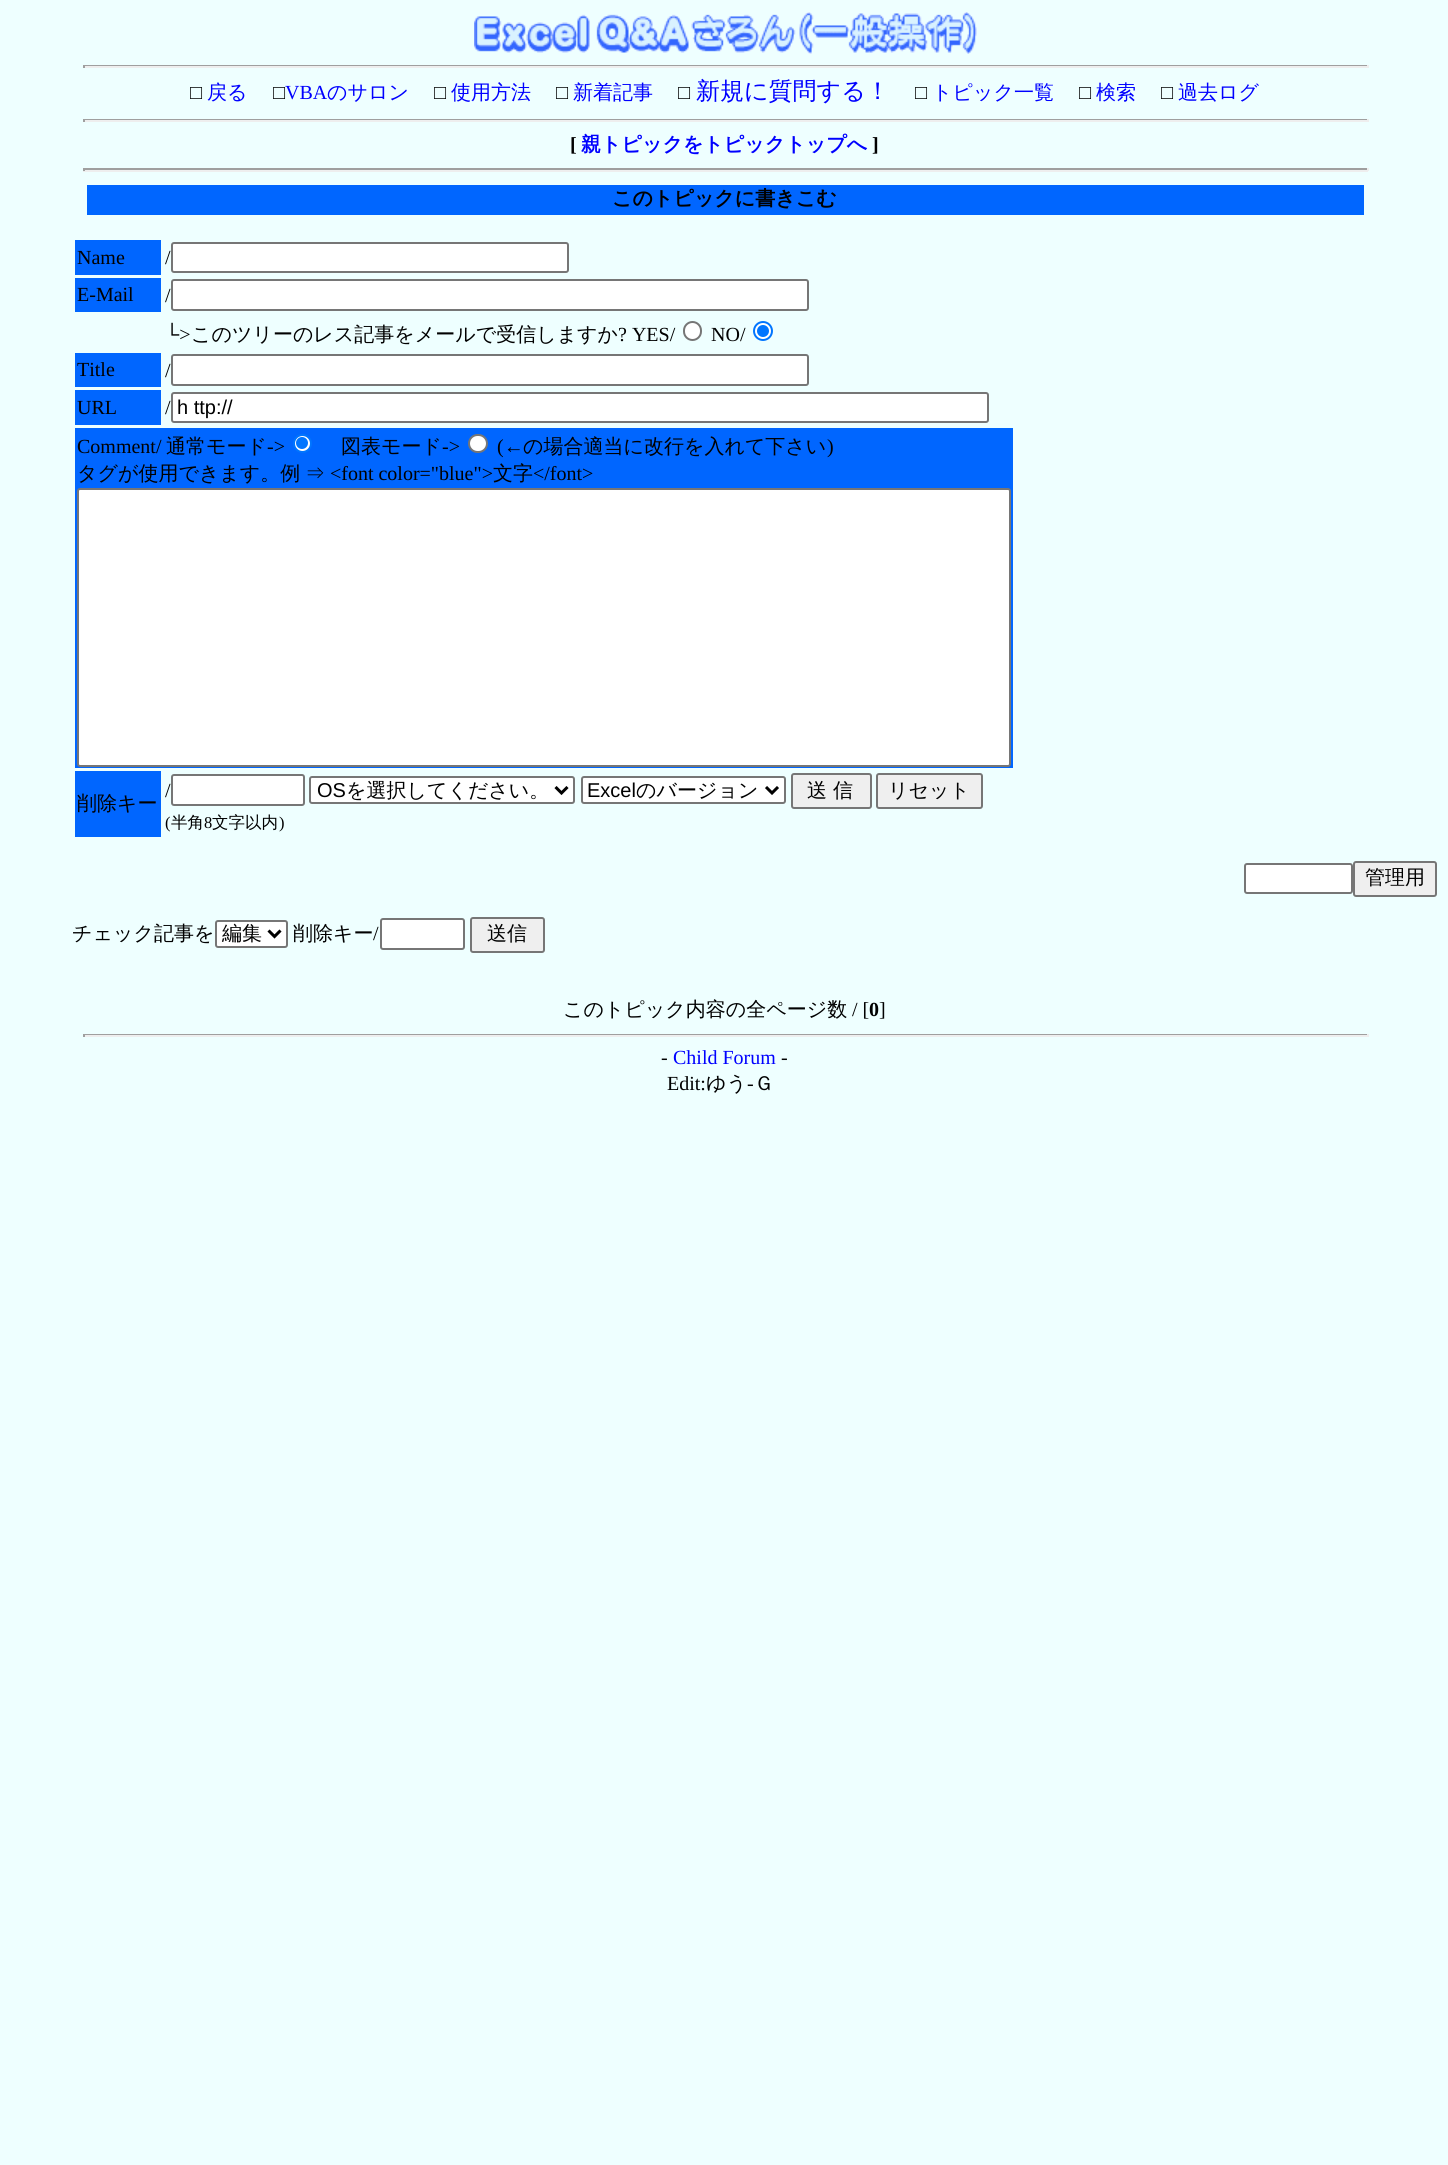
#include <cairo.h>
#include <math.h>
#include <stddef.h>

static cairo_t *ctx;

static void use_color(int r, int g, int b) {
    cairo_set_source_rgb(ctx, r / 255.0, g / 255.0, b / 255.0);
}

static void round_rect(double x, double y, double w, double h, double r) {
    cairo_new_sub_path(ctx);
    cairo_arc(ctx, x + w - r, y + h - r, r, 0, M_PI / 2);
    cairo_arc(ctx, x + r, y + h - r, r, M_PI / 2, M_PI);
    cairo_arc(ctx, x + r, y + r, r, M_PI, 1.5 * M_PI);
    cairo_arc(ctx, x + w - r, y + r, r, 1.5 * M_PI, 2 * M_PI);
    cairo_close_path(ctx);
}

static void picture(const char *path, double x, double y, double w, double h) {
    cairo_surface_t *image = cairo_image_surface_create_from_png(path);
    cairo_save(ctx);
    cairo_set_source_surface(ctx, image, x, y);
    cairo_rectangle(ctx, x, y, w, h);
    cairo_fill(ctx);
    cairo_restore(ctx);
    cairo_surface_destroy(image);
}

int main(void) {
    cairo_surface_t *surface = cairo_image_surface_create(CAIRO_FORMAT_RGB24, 1448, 2165);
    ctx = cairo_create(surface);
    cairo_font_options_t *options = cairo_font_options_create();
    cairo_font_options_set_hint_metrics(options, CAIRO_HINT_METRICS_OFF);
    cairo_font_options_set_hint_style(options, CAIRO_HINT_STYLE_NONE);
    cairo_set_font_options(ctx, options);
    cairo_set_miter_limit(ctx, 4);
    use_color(238, 255, 255);
    cairo_paint(ctx);
    picture("img1.png", 474, 12, 503, 42);
    use_color(159, 159, 159);
    cairo_rectangle(ctx, 83, 65, 1285, 1);
    cairo_fill(ctx);
    use_color(238, 238, 238);
    cairo_rectangle(ctx, 1367, 65, 2, 3);
    cairo_fill(ctx);
    cairo_rectangle(ctx, 83, 66, 1285, 2);
    cairo_fill(ctx);
    use_color(159, 159, 159);
    cairo_rectangle(ctx, 83, 65, 2, 3);
    cairo_fill(ctx);
    cairo_select_font_face(ctx, "Liberation Serif", CAIRO_FONT_SLANT_NORMAL, CAIRO_FONT_WEIGHT_NORMAL);
    cairo_set_font_size(ctx, 20);
    use_color(0, 0, 0);
    cairo_move_to(ctx, 190, 99);
    cairo_show_text(ctx, "□");
    cairo_select_font_face(ctx, "WenQuanYi Zen Hei Medium", CAIRO_FONT_SLANT_NORMAL, CAIRO_FONT_WEIGHT_NORMAL);
    use_color(0, 0, 255);
    cairo_move_to(ctx, 207, 99);
    cairo_show_text(ctx, "戻る");
    cairo_select_font_face(ctx, "Liberation Serif", CAIRO_FONT_SLANT_NORMAL, CAIRO_FONT_WEIGHT_NORMAL);
    use_color(0, 0, 0);
    cairo_move_to(ctx, 273, 99);
    cairo_show_text(ctx, "□");
    use_color(0, 0, 255);
    cairo_move_to(ctx, 285, 99);
    cairo_show_text(ctx, "VBA");
    cairo_select_font_face(ctx, "WenQuanYi Zen Hei Medium", CAIRO_FONT_SLANT_NORMAL, CAIRO_FONT_WEIGHT_NORMAL);
    cairo_move_to(ctx, 327, 99);
    cairo_show_text(ctx, "のサロン");
    cairo_select_font_face(ctx, "Liberation Serif", CAIRO_FONT_SLANT_NORMAL, CAIRO_FONT_WEIGHT_NORMAL);
    use_color(0, 0, 0);
    cairo_move_to(ctx, 434, 99);
    cairo_show_text(ctx, "□");
    cairo_select_font_face(ctx, "WenQuanYi Zen Hei Medium", CAIRO_FONT_SLANT_NORMAL, CAIRO_FONT_WEIGHT_NORMAL);
    use_color(0, 0, 255);
    cairo_move_to(ctx, 451, 99);
    cairo_show_text(ctx, "使用方法");
    cairo_select_font_face(ctx, "Liberation Serif", CAIRO_FONT_SLANT_NORMAL, CAIRO_FONT_WEIGHT_NORMAL);
    use_color(0, 0, 0);
    cairo_move_to(ctx, 556, 99);
    cairo_show_text(ctx, "□");
    cairo_select_font_face(ctx, "WenQuanYi Zen Hei Medium", CAIRO_FONT_SLANT_NORMAL, CAIRO_FONT_WEIGHT_NORMAL);
    use_color(0, 0, 255);
    cairo_move_to(ctx, 573, 99);
    cairo_show_text(ctx, "新着記事");
    cairo_select_font_face(ctx, "Liberation Serif", CAIRO_FONT_SLANT_NORMAL, CAIRO_FONT_WEIGHT_NORMAL);
    use_color(0, 0, 0);
    cairo_move_to(ctx, 678, 99);
    cairo_show_text(ctx, "□");
    cairo_select_font_face(ctx, "WenQuanYi Zen Hei Medium", CAIRO_FONT_SLANT_NORMAL, CAIRO_FONT_WEIGHT_NORMAL);
    cairo_set_font_size(ctx, 24);
    use_color(0, 0, 255);
    cairo_move_to(ctx, 696, 99);
    cairo_show_text(ctx, "新規に質問する！");
    cairo_select_font_face(ctx, "Liberation Serif", CAIRO_FONT_SLANT_NORMAL, CAIRO_FONT_WEIGHT_NORMAL);
    cairo_set_font_size(ctx, 20);
    use_color(0, 0, 0);
    cairo_move_to(ctx, 915, 99);
    cairo_show_text(ctx, "□");
    cairo_select_font_face(ctx, "WenQuanYi Zen Hei Medium", CAIRO_FONT_SLANT_NORMAL, CAIRO_FONT_WEIGHT_NORMAL);
    use_color(0, 0, 255);
    cairo_move_to(ctx, 932, 99);
    cairo_show_text(ctx, "トピック一覧");
    cairo_select_font_face(ctx, "Liberation Serif", CAIRO_FONT_SLANT_NORMAL, CAIRO_FONT_WEIGHT_NORMAL);
    use_color(0, 0, 0);
    cairo_move_to(ctx, 1079, 99);
    cairo_show_text(ctx, "□");
    cairo_select_font_face(ctx, "WenQuanYi Zen Hei Medium", CAIRO_FONT_SLANT_NORMAL, CAIRO_FONT_WEIGHT_NORMAL);
    use_color(0, 0, 255);
    cairo_move_to(ctx, 1096, 99);
    cairo_show_text(ctx, "検索");
    cairo_select_font_face(ctx, "Liberation Serif", CAIRO_FONT_SLANT_NORMAL, CAIRO_FONT_WEIGHT_NORMAL);
    use_color(0, 0, 0);
    cairo_move_to(ctx, 1161, 99);
    cairo_show_text(ctx, "□");
    cairo_select_font_face(ctx, "WenQuanYi Zen Hei Medium", CAIRO_FONT_SLANT_NORMAL, CAIRO_FONT_WEIGHT_NORMAL);
    use_color(0, 0, 255);
    cairo_move_to(ctx, 1178, 99);
    cairo_show_text(ctx, "過去ログ");
    use_color(159, 159, 159);
    cairo_rectangle(ctx, 83, 119, 1285, 1);
    cairo_fill(ctx);
    use_color(238, 238, 238);
    cairo_rectangle(ctx, 1367, 119, 2, 3);
    cairo_fill(ctx);
    cairo_rectangle(ctx, 83, 120, 1285, 2);
    cairo_fill(ctx);
    use_color(159, 159, 159);
    cairo_rectangle(ctx, 83, 119, 2, 3);
    cairo_fill(ctx);
    cairo_select_font_face(ctx, "Liberation Serif", CAIRO_FONT_SLANT_NORMAL, CAIRO_FONT_WEIGHT_BOLD);
    use_color(0, 0, 0);
    cairo_move_to(ctx, 570, 151);
    cairo_show_text(ctx, "[");
    cairo_select_font_face(ctx, "WenQuanYi Zen Hei", CAIRO_FONT_SLANT_NORMAL, CAIRO_FONT_WEIGHT_BOLD);
    use_color(0, 0, 255);
    cairo_move_to(ctx, 581, 151);
    cairo_show_text(ctx, "親トピックをトピックトップへ");
    cairo_select_font_face(ctx, "Liberation Serif", CAIRO_FONT_SLANT_NORMAL, CAIRO_FONT_WEIGHT_BOLD);
    use_color(0, 0, 0);
    cairo_move_to(ctx, 872, 151);
    cairo_show_text(ctx, "]");
    use_color(159, 159, 159);
    cairo_rectangle(ctx, 83, 168, 1285, 2);
    cairo_fill(ctx);
    use_color(238, 238, 238);
    cairo_rectangle(ctx, 1367, 168, 2, 3);
    cairo_fill(ctx);
    cairo_rectangle(ctx, 83, 170, 1285, 2);
    cairo_fill(ctx);
    use_color(159, 159, 159);
    cairo_rectangle(ctx, 83, 168, 2, 3);
    cairo_fill(ctx);
    use_color(0, 102, 255);
    cairo_rectangle(ctx, 87, 185, 1277, 30);
    cairo_fill(ctx);
    cairo_select_font_face(ctx, "WenQuanYi Zen Hei", CAIRO_FONT_SLANT_NORMAL, CAIRO_FONT_WEIGHT_BOLD);
    use_color(0, 0, 0);
    cairo_move_to(ctx, 612, 205);
    cairo_show_text(ctx, "このトピックに書きこむ");
    use_color(0, 102, 255);
    cairo_rectangle(ctx, 75, 240, 86, 35);
    cairo_fill(ctx);
    cairo_select_font_face(ctx, "Liberation Serif", CAIRO_FONT_SLANT_NORMAL, CAIRO_FONT_WEIGHT_NORMAL);
    use_color(0, 0, 0);
    cairo_move_to(ctx, 77, 264);
    cairo_show_text(ctx, "Name");
    cairo_move_to(ctx, 165, 264);
    cairo_show_text(ctx, "/");
    use_color(255, 255, 255);
    round_rect(172, 243, 396, 29, 2);
    cairo_fill_preserve(ctx);
    use_color(118, 118, 118);
    cairo_stroke(ctx);
    use_color(0, 102, 255);
    cairo_rectangle(ctx, 75, 278, 86, 34);
    cairo_fill(ctx);
    use_color(0, 0, 0);
    cairo_move_to(ctx, 77, 301);
    cairo_show_text(ctx, "E-Mail");
    cairo_move_to(ctx, 165, 302);
    cairo_show_text(ctx, "/");
    use_color(255, 255, 255);
    round_rect(172, 280, 636, 30, 2);
    cairo_fill_preserve(ctx);
    use_color(118, 118, 118);
    cairo_stroke(ctx);
    use_color(0, 0, 0);
    cairo_move_to(ctx, 165, 341);
    cairo_show_text(ctx, "└>");
    cairo_select_font_face(ctx, "WenQuanYi Zen Hei Medium", CAIRO_FONT_SLANT_NORMAL, CAIRO_FONT_WEIGHT_NORMAL);
    cairo_move_to(ctx, 191, 341);
    cairo_show_text(ctx, "このツリーのレス記事をメールで受信しますか");
    cairo_select_font_face(ctx, "Liberation Serif", CAIRO_FONT_SLANT_NORMAL, CAIRO_FONT_WEIGHT_NORMAL);
    cairo_move_to(ctx, 618, 341);
    cairo_show_text(ctx, "? YES/");
    use_color(255, 255, 255);
    round_rect(684, 322, 17, 18, 8.5);
    cairo_fill_preserve(ctx);
    use_color(118, 118, 118);
    cairo_stroke(ctx);
    use_color(0, 0, 0);
    cairo_move_to(ctx, 711, 341);
    cairo_show_text(ctx, "NO/");
    use_color(255, 255, 255);
    cairo_new_path(ctx);
    cairo_arc(ctx, 763, 331, 9, 0, 2 * M_PI);
    cairo_fill_preserve(ctx);
    use_color(0, 117, 255);
    cairo_stroke(ctx);
    cairo_arc(ctx, 763, 331, 6, 0, 2 * M_PI);
    cairo_fill(ctx);
    use_color(0, 102, 255);
    cairo_rectangle(ctx, 75, 353, 86, 34);
    cairo_fill(ctx);
    use_color(0, 0, 0);
    cairo_move_to(ctx, 77, 376);
    cairo_show_text(ctx, "Title");
    cairo_move_to(ctx, 165, 377);
    cairo_show_text(ctx, "/");
    use_color(255, 255, 255);
    round_rect(172, 355, 636, 30, 2);
    cairo_fill_preserve(ctx);
    use_color(118, 118, 118);
    cairo_stroke(ctx);
    use_color(0, 102, 255);
    cairo_rectangle(ctx, 75, 390, 86, 35);
    cairo_fill(ctx);
    use_color(0, 0, 0);
    cairo_move_to(ctx, 77, 414);
    cairo_show_text(ctx, "URL");
    cairo_move_to(ctx, 165, 414);
    cairo_show_text(ctx, "/");
    use_color(255, 255, 255);
    round_rect(172, 393, 816, 29, 2);
    cairo_fill_preserve(ctx);
    use_color(118, 118, 118);
    cairo_stroke(ctx);
    cairo_select_font_face(ctx, "Liberation Sans", CAIRO_FONT_SLANT_NORMAL, CAIRO_FONT_WEIGHT_NORMAL);
    use_color(0, 0, 0);
    cairo_move_to(ctx, 177, 414);
    cairo_show_text(ctx, "h ttp://");
    use_color(0, 102, 255);
    cairo_rectangle(ctx, 75, 428, 938, 340);
    cairo_fill(ctx);
    cairo_select_font_face(ctx, "Liberation Serif", CAIRO_FONT_SLANT_NORMAL, CAIRO_FONT_WEIGHT_NORMAL);
    use_color(0, 0, 0);
    cairo_move_to(ctx, 77, 453);
    cairo_show_text(ctx, "Comment/");
    cairo_select_font_face(ctx, "WenQuanYi Zen Hei Medium", CAIRO_FONT_SLANT_NORMAL, CAIRO_FONT_WEIGHT_NORMAL);
    cairo_move_to(ctx, 166, 453);
    cairo_show_text(ctx, "通常モード");
    cairo_select_font_face(ctx, "Liberation Serif", CAIRO_FONT_SLANT_NORMAL, CAIRO_FONT_WEIGHT_NORMAL);
    cairo_move_to(ctx, 267, 453);
    cairo_show_text(ctx, "->");
    use_color(255, 255, 255);
    cairo_new_path(ctx);
    cairo_arc(ctx, 302.5, 443.5, 8.5, 0, 2 * M_PI);
    cairo_fill_preserve(ctx);
    use_color(0, 117, 255);
    cairo_stroke(ctx);
    cairo_arc(ctx, 302, 443, 6, 0, 2 * M_PI);
    cairo_fill(ctx);
    cairo_select_font_face(ctx, "WenQuanYi Zen Hei Medium", CAIRO_FONT_SLANT_NORMAL, CAIRO_FONT_WEIGHT_NORMAL);
    use_color(0, 0, 0);
    cairo_move_to(ctx, 341, 453);
    cairo_show_text(ctx, "図表モード");
    cairo_select_font_face(ctx, "Liberation Serif", CAIRO_FONT_SLANT_NORMAL, CAIRO_FONT_WEIGHT_NORMAL);
    cairo_move_to(ctx, 442, 453);
    cairo_show_text(ctx, "->");
    use_color(255, 255, 255);
    round_rect(469, 435, 18, 17, 8.5);
    cairo_fill_preserve(ctx);
    use_color(118, 118, 118);
    cairo_stroke(ctx);
    use_color(0, 0, 0);
    cairo_move_to(ctx, 497, 453);
    cairo_show_text(ctx, "(←");
    cairo_select_font_face(ctx, "WenQuanYi Zen Hei Medium", CAIRO_FONT_SLANT_NORMAL, CAIRO_FONT_WEIGHT_NORMAL);
    cairo_move_to(ctx, 523, 453);
    cairo_show_text(ctx, "の場合適当に改行を入れて下さい");
    cairo_select_font_face(ctx, "Liberation Serif", CAIRO_FONT_SLANT_NORMAL, CAIRO_FONT_WEIGHT_NORMAL);
    cairo_move_to(ctx, 827, 453);
    cairo_show_text(ctx, ")");
    cairo_select_font_face(ctx, "WenQuanYi Zen Hei Medium", CAIRO_FONT_SLANT_NORMAL, CAIRO_FONT_WEIGHT_NORMAL);
    cairo_move_to(ctx, 77, 480);
    cairo_show_text(ctx, "タグが使用できます。例");
    cairo_move_to(ctx, 305, 480);
    cairo_show_text(ctx, "⇒");
    cairo_select_font_face(ctx, "Liberation Serif", CAIRO_FONT_SLANT_NORMAL, CAIRO_FONT_WEIGHT_NORMAL);
    cairo_move_to(ctx, 330, 480);
    cairo_show_text(ctx, "<font color=\"blue\">");
    cairo_select_font_face(ctx, "WenQuanYi Zen Hei Medium", CAIRO_FONT_SLANT_NORMAL, CAIRO_FONT_WEIGHT_NORMAL);
    cairo_move_to(ctx, 493, 480);
    cairo_show_text(ctx, "文字");
    cairo_select_font_face(ctx, "Liberation Serif", CAIRO_FONT_SLANT_NORMAL, CAIRO_FONT_WEIGHT_NORMAL);
    cairo_move_to(ctx, 533, 480);
    cairo_show_text(ctx, "</font>");
    use_color(255, 255, 255);
    round_rect(78, 489, 932, 277, 2);
    cairo_fill_preserve(ctx);
    use_color(118, 118, 118);
    cairo_stroke(ctx);
    use_color(0, 102, 255);
    cairo_rectangle(ctx, 75, 771, 86, 66);
    cairo_fill(ctx);
    cairo_select_font_face(ctx, "WenQuanYi Zen Hei Medium", CAIRO_FONT_SLANT_NORMAL, CAIRO_FONT_WEIGHT_NORMAL);
    use_color(0, 0, 0);
    cairo_move_to(ctx, 77, 810);
    cairo_show_text(ctx, "削除キー");
    cairo_select_font_face(ctx, "Liberation Serif", CAIRO_FONT_SLANT_NORMAL, CAIRO_FONT_WEIGHT_NORMAL);
    cairo_move_to(ctx, 165, 797);
    cairo_show_text(ctx, "/");
    use_color(255, 255, 255);
    round_rect(172, 775, 132, 30, 2);
    cairo_fill_preserve(ctx);
    use_color(118, 118, 118);
    cairo_stroke(ctx);
    use_color(255, 255, 255);
    round_rect(310, 777, 264, 26, 2);
    cairo_fill_preserve(ctx);
    use_color(118, 118, 118);
    cairo_stroke(ctx);
    cairo_new_path(ctx);
    cairo_move_to(ctx, 555.5, 787);
    cairo_line_to(ctx, 561.5, 793);
    cairo_line_to(ctx, 567.5, 787);
    use_color(0, 0, 0);
    cairo_set_line_width(ctx, 3);
    cairo_stroke(ctx);
    cairo_select_font_face(ctx, "Liberation Sans", CAIRO_FONT_SLANT_NORMAL, CAIRO_FONT_WEIGHT_NORMAL);
    cairo_move_to(ctx, 317, 797);
    cairo_show_text(ctx, "OS");
    cairo_select_font_face(ctx, "WenQuanYi Zen Hei Medium", CAIRO_FONT_SLANT_NORMAL, CAIRO_FONT_WEIGHT_NORMAL);
    cairo_move_to(ctx, 346, 797);
    cairo_show_text(ctx, "を選択してください。");
    use_color(255, 255, 255);
    round_rect(582, 777, 203, 26, 2);
    cairo_fill_preserve(ctx);
    use_color(118, 118, 118);
    cairo_set_line_width(ctx, 2);
    cairo_stroke(ctx);
    cairo_new_path(ctx);
    cairo_move_to(ctx, 766, 787);
    cairo_line_to(ctx, 772, 793);
    cairo_line_to(ctx, 778, 787);
    use_color(0, 0, 0);
    cairo_set_line_width(ctx, 3);
    cairo_stroke(ctx);
    cairo_select_font_face(ctx, "Liberation Sans", CAIRO_FONT_SLANT_NORMAL, CAIRO_FONT_WEIGHT_NORMAL);
    cairo_move_to(ctx, 587, 797);
    cairo_show_text(ctx, "Excel");
    cairo_select_font_face(ctx, "WenQuanYi Zen Hei Medium", CAIRO_FONT_SLANT_NORMAL, CAIRO_FONT_WEIGHT_NORMAL);
    cairo_move_to(ctx, 636, 797);
    cairo_show_text(ctx, "のバージョン");
    use_color(239, 239, 239);
    round_rect(792, 774, 79, 34, 2);
    cairo_fill_preserve(ctx);
    use_color(118, 118, 118);
    cairo_set_line_width(ctx, 2);
    cairo_stroke(ctx);
    use_color(0, 0, 0);
    cairo_move_to(ctx, 807, 797);
    cairo_show_text(ctx, "送 信");
    use_color(239, 239, 239);
    round_rect(877, 774, 105, 34, 2);
    cairo_fill_preserve(ctx);
    use_color(118, 118, 118);
    cairo_stroke(ctx);
    use_color(0, 0, 0);
    cairo_move_to(ctx, 888, 797);
    cairo_show_text(ctx, "リセット");
    cairo_select_font_face(ctx, "Liberation Serif", CAIRO_FONT_SLANT_NORMAL, CAIRO_FONT_WEIGHT_NORMAL);
    cairo_set_font_size(ctx, 16.5);
    cairo_move_to(ctx, 165, 828);
    cairo_show_text(ctx, "(");
    cairo_select_font_face(ctx, "WenQuanYi Zen Hei Medium", CAIRO_FONT_SLANT_NORMAL, CAIRO_FONT_WEIGHT_NORMAL);
    cairo_move_to(ctx, 171, 828);
    cairo_show_text(ctx, "半角");
    cairo_select_font_face(ctx, "Liberation Serif", CAIRO_FONT_SLANT_NORMAL, CAIRO_FONT_WEIGHT_NORMAL);
    cairo_move_to(ctx, 204, 828);
    cairo_show_text(ctx, "8");
    cairo_select_font_face(ctx, "WenQuanYi Zen Hei Medium", CAIRO_FONT_SLANT_NORMAL, CAIRO_FONT_WEIGHT_NORMAL);
    cairo_move_to(ctx, 212, 828);
    cairo_show_text(ctx, "文字以内");
    cairo_select_font_face(ctx, "Liberation Serif", CAIRO_FONT_SLANT_NORMAL, CAIRO_FONT_WEIGHT_NORMAL);
    cairo_move_to(ctx, 279, 828);
    cairo_show_text(ctx, ")");
    use_color(255, 255, 255);
    round_rect(1245, 864, 107, 29, 2);
    cairo_fill_preserve(ctx);
    use_color(118, 118, 118);
    cairo_stroke(ctx);
    use_color(239, 239, 239);
    round_rect(1354, 862, 82, 34, 2);
    cairo_fill_preserve(ctx);
    use_color(118, 118, 118);
    cairo_stroke(ctx);
    cairo_select_font_face(ctx, "WenQuanYi Zen Hei Medium", CAIRO_FONT_SLANT_NORMAL, CAIRO_FONT_WEIGHT_NORMAL);
    cairo_set_font_size(ctx, 20);
    use_color(0, 0, 0);
    cairo_move_to(ctx, 1365, 884);
    cairo_show_text(ctx, "管理用");
    cairo_move_to(ctx, 72, 940);
    cairo_show_text(ctx, "チェック記事を");
    use_color(255, 255, 255);
    round_rect(216, 921, 71, 26, 2);
    cairo_fill_preserve(ctx);
    use_color(118, 118, 118);
    cairo_stroke(ctx);
    cairo_new_path(ctx);
    cairo_move_to(ctx, 268.5, 930.5);
    cairo_line_to(ctx, 274.5, 936.5);
    cairo_line_to(ctx, 280.5, 930.5);
    use_color(0, 0, 0);
    cairo_set_line_width(ctx, 3);
    cairo_stroke(ctx);
    cairo_move_to(ctx, 222, 940);
    cairo_show_text(ctx, "編集");
    cairo_move_to(ctx, 293, 940);
    cairo_show_text(ctx, "削除キー");
    cairo_select_font_face(ctx, "Liberation Serif", CAIRO_FONT_SLANT_NORMAL, CAIRO_FONT_WEIGHT_NORMAL);
    cairo_move_to(ctx, 373, 940);
    cairo_show_text(ctx, "/");
    use_color(255, 255, 255);
    round_rect(381, 919, 83, 30, 2);
    cairo_fill_preserve(ctx);
    use_color(118, 118, 118);
    cairo_set_line_width(ctx, 2);
    cairo_stroke(ctx);
    use_color(239, 239, 239);
    round_rect(471, 918, 73, 34, 2);
    cairo_fill_preserve(ctx);
    use_color(118, 118, 118);
    cairo_stroke(ctx);
    cairo_select_font_face(ctx, "WenQuanYi Zen Hei Medium", CAIRO_FONT_SLANT_NORMAL, CAIRO_FONT_WEIGHT_NORMAL);
    use_color(0, 0, 0);
    cairo_move_to(ctx, 487, 940);
    cairo_show_text(ctx, "送信");
    cairo_move_to(ctx, 563, 1016);
    cairo_show_text(ctx, "このトピック内容の全ページ数");
    cairo_select_font_face(ctx, "Liberation Serif", CAIRO_FONT_SLANT_NORMAL, CAIRO_FONT_WEIGHT_NORMAL);
    cairo_move_to(ctx, 852, 1016);
    cairo_show_text(ctx, "/ [");
    cairo_select_font_face(ctx, "Liberation Serif", CAIRO_FONT_SLANT_NORMAL, CAIRO_FONT_WEIGHT_BOLD);
    cairo_move_to(ctx, 869, 1016);
    cairo_show_text(ctx, "0");
    cairo_select_font_face(ctx, "Liberation Serif", CAIRO_FONT_SLANT_NORMAL, CAIRO_FONT_WEIGHT_NORMAL);
    cairo_move_to(ctx, 879, 1016);
    cairo_show_text(ctx, "]");
    use_color(159, 159, 159);
    cairo_rectangle(ctx, 83, 1034, 1285, 1);
    cairo_fill(ctx);
    use_color(238, 238, 238);
    cairo_rectangle(ctx, 1367, 1034, 2, 3);
    cairo_fill(ctx);
    cairo_rectangle(ctx, 83, 1035, 1285, 2);
    cairo_fill(ctx);
    use_color(159, 159, 159);
    cairo_rectangle(ctx, 83, 1034, 2, 3);
    cairo_fill(ctx);
    use_color(0, 0, 0);
    cairo_move_to(ctx, 661, 1064);
    cairo_show_text(ctx, "-");
    use_color(0, 0, 255);
    cairo_move_to(ctx, 673, 1064);
    cairo_show_text(ctx, "Child Forum");
    use_color(0, 0, 0);
    cairo_move_to(ctx, 781, 1064);
    cairo_show_text(ctx, "-");
    cairo_move_to(ctx, 667, 1090);
    cairo_show_text(ctx, "Edit:");
    cairo_select_font_face(ctx, "WenQuanYi Zen Hei Medium", CAIRO_FONT_SLANT_NORMAL, CAIRO_FONT_WEIGHT_NORMAL);
    cairo_move_to(ctx, 706, 1090);
    cairo_show_text(ctx, "ゆう");
    cairo_select_font_face(ctx, "Liberation Serif", CAIRO_FONT_SLANT_NORMAL, CAIRO_FONT_WEIGHT_NORMAL);
    cairo_move_to(ctx, 747, 1090);
    cairo_show_text(ctx, "-");
    cairo_select_font_face(ctx, "WenQuanYi Zen Hei Medium", CAIRO_FONT_SLANT_NORMAL, CAIRO_FONT_WEIGHT_NORMAL);
    cairo_move_to(ctx, 754, 1090);
    cairo_show_text(ctx, "Ｇ");
    cairo_surface_write_to_png(surface, "result.png");
    cairo_font_options_destroy(options);
    cairo_destroy(ctx);
    cairo_surface_destroy(surface);
    return 0;
}
